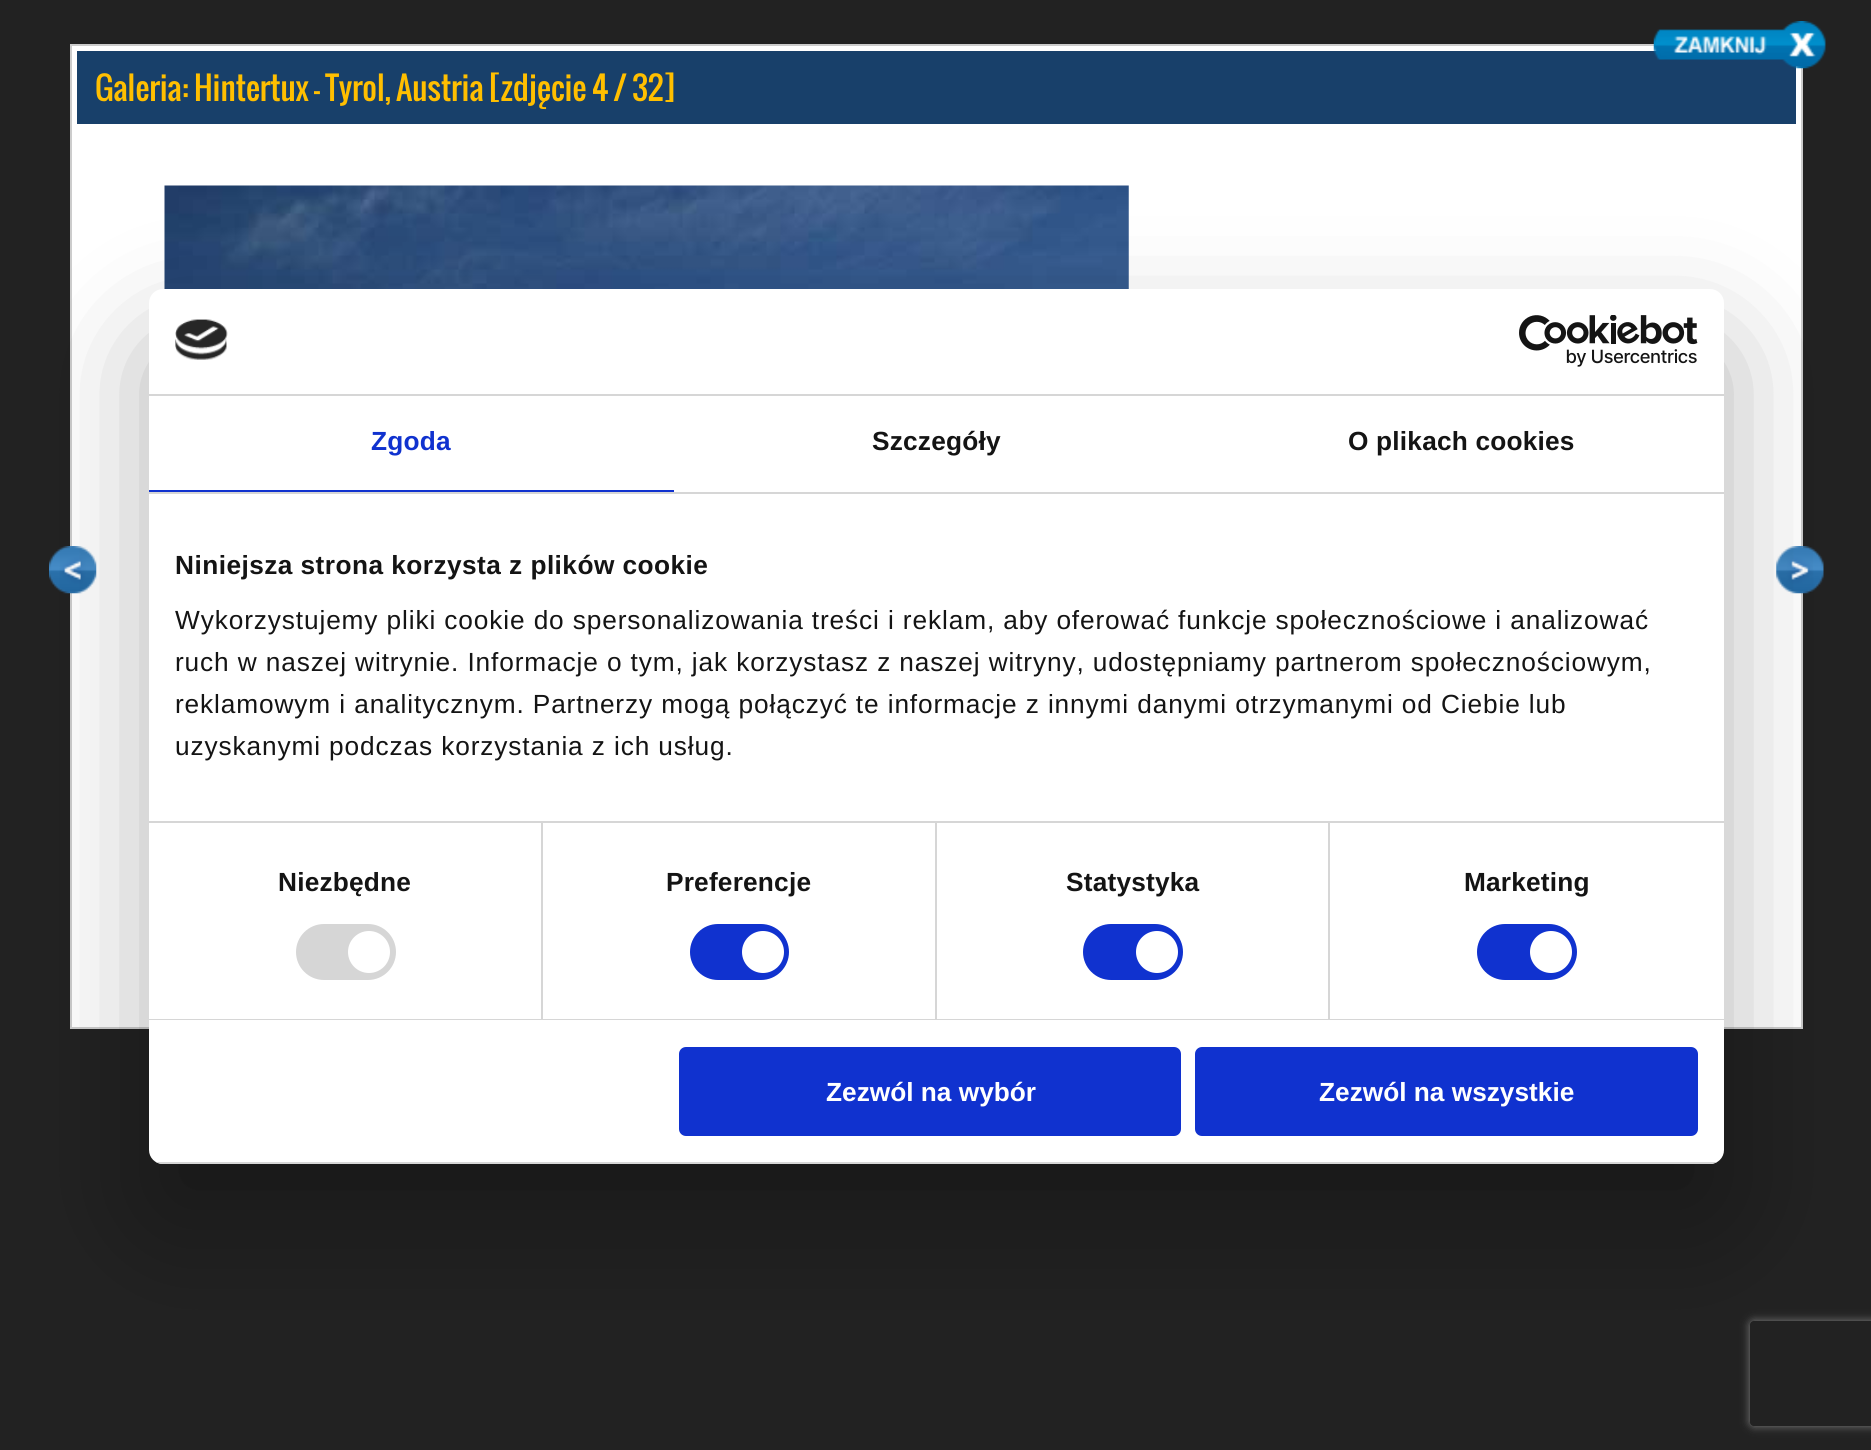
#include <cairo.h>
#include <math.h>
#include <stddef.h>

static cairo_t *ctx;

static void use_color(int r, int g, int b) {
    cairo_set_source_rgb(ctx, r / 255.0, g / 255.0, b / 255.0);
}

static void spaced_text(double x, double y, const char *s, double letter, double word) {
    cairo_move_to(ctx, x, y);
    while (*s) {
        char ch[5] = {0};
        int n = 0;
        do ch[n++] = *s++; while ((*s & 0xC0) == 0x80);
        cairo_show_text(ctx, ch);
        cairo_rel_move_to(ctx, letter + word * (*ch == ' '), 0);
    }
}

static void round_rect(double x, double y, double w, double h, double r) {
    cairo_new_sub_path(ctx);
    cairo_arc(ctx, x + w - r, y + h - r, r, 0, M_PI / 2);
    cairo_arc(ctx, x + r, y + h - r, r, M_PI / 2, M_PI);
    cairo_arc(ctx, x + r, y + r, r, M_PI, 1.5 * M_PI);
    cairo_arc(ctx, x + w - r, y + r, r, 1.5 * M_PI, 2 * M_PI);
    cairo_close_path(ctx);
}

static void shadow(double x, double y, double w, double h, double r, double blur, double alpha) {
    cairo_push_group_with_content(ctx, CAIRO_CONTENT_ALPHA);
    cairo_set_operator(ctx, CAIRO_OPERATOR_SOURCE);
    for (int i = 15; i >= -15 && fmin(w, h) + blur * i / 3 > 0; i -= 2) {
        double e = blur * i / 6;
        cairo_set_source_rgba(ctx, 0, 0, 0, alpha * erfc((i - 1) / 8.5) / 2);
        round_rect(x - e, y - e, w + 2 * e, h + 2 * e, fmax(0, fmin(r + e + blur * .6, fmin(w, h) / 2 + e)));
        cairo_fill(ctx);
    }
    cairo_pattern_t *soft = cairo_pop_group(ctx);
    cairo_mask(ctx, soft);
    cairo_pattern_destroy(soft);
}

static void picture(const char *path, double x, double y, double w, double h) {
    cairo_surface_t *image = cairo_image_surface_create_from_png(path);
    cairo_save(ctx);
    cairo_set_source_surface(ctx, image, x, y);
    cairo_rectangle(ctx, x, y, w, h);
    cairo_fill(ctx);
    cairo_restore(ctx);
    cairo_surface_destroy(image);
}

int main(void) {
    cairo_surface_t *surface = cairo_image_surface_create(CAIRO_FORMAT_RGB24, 1871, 1450);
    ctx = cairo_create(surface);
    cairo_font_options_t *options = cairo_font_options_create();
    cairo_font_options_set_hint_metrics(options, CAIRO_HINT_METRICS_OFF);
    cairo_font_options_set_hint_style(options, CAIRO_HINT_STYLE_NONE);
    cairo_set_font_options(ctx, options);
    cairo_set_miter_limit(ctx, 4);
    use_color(34, 34, 34);
    cairo_paint(ctx);
    cairo_rectangle(ctx, 71, 45, 1731, 983);
    use_color(204, 204, 204);
    cairo_stroke(ctx);
    use_color(24, 64, 106);
    cairo_rectangle(ctx, 77, 51, 1719, 73);
    cairo_fill(ctx);
    use_color(255, 255, 255);
    cairo_rectangle(ctx, 72, 46, 1585, 5);
    cairo_fill(ctx);
    cairo_rectangle(ctx, 1796, 66, 5, 58);
    cairo_fill(ctx);
    picture("img1.png", 1653, 21, 173, 48);
    cairo_rectangle(ctx, 72, 46, 5, 78);
    cairo_fill(ctx);
    cairo_select_font_face(ctx, "Oswald", CAIRO_FONT_SLANT_NORMAL, CAIRO_FONT_WEIGHT_NORMAL);
    cairo_set_font_size(ctx, 31.5);
    use_color(255, 191, 0);
    cairo_move_to(ctx, 95, 101);
    cairo_show_text(ctx, "Galeria: Hintertux - Tyrol, Austria [zdjęcie 4 / 32]");
    use_color(255, 255, 255);
    cairo_rectangle(ctx, 72, 124, 1729, 903);
    cairo_fill(ctx);
    picture("img2.png", 164, 185, 965, 104);
    picture("img3.png", 49, 546, 48, 48);
    picture("img4.png", 1776, 546, 48, 48);
    use_color(0, 0, 0);
    shadow(149, 345, 1575, 875, 14, 59.5, 0.3);
    use_color(255, 255, 255);
    round_rect(149, 289, 1575, 875, 14);
    cairo_fill(ctx);
    use_color(214, 214, 214);
    cairo_rectangle(ctx, 149, 394, 1575, 2);
    cairo_fill(ctx);
    picture("img5.png", 175, 319, 53, 41);
    picture("img6.png", 1519, 315, 179, 52);
    cairo_rectangle(ctx, 149, 492, 1575, 2);
    cairo_fill(ctx);
    use_color(16, 50, 207);
    cairo_rectangle(ctx, 149, 490, 525, 2);
    cairo_fill(ctx);
    cairo_select_font_face(ctx, "Liberation Sans", CAIRO_FONT_SLANT_NORMAL, CAIRO_FONT_WEIGHT_BOLD);
    cairo_set_font_size(ctx, 26.25);
    spaced_text(371, 450, "Zgoda", 0.2, 0);
    use_color(20, 20, 20);
    spaced_text(872, 450, "Szczegóły", 0.2, 0);
    spaced_text(1348, 450, "O plikach cookies", 0.2, 0);
    use_color(214, 214, 214);
    cairo_rectangle(ctx, 149, 821, 1575, 2);
    cairo_fill(ctx);
    use_color(20, 20, 20);
    spaced_text(175, 574, "Niniejsza strona korzysta z plików cookie", 0.45, 0);
    cairo_select_font_face(ctx, "Liberation Sans", CAIRO_FONT_SLANT_NORMAL, CAIRO_FONT_WEIGHT_NORMAL);
    spaced_text(175, 629, "Wykorzystujemy pliki cookie do spersonalizowania treści i reklam, aby oferować funkcje społecznościowe i analizować", 0.88, 0);
    spaced_text(175, 671, "ruch w naszej witrynie. Informacje o tym, jak korzystasz z naszej witryny, udostępniamy partnerom społecznościowym,", 0.88, 0);
    spaced_text(175, 713, "reklamowym i analitycznym. Partnerzy mogą połączyć te informacje z innymi danymi otrzymanymi od Ciebie lub", 0.88, 0);
    spaced_text(175, 755, "uzyskanymi podczas korzystania z ich usług.", 0.88, 0);
    use_color(214, 214, 214);
    cairo_rectangle(ctx, 149, 1019, 1575, 1);
    cairo_fill(ctx);
    cairo_rectangle(ctx, 541, 823, 2, 196);
    cairo_fill(ctx);
    cairo_select_font_face(ctx, "Liberation Sans", CAIRO_FONT_SLANT_NORMAL, CAIRO_FONT_WEIGHT_BOLD);
    use_color(20, 20, 20);
    spaced_text(278, 891, "Niezbędne", 0.2, 0);
    use_color(214, 214, 214);
    round_rect(296, 924, 100, 56, 28);
    cairo_fill(ctx);
    use_color(255, 255, 255);
    cairo_arc(ctx, 369, 952, 21, 0, 2 * M_PI);
    cairo_fill(ctx);
    use_color(214, 214, 214);
    cairo_rectangle(ctx, 935, 823, 2, 196);
    cairo_fill(ctx);
    use_color(20, 20, 20);
    spaced_text(666, 891, "Preferencje", 0.2, 0);
    use_color(16, 50, 207);
    round_rect(690, 924, 99, 56, 28);
    cairo_fill(ctx);
    use_color(255, 255, 255);
    cairo_arc(ctx, 763, 952, 21, 0, 2 * M_PI);
    cairo_fill(ctx);
    use_color(214, 214, 214);
    cairo_rectangle(ctx, 1328, 823, 2, 196);
    cairo_fill(ctx);
    use_color(20, 20, 20);
    spaced_text(1066, 891, "Statystyka", 0.2, 0);
    use_color(16, 50, 207);
    round_rect(1083, 924, 100, 56, 28);
    cairo_fill(ctx);
    use_color(255, 255, 255);
    cairo_arc(ctx, 1157, 952, 21, 0, 2 * M_PI);
    cairo_fill(ctx);
    use_color(20, 20, 20);
    spaced_text(1464, 891, "Marketing", 0.2, 0);
    use_color(16, 50, 207);
    round_rect(1477, 924, 100, 56, 28);
    cairo_fill(ctx);
    use_color(255, 255, 255);
    cairo_arc(ctx, 1551, 952, 21, 0, 2 * M_PI);
    cairo_fill(ctx);
    cairo_save(ctx);
    round_rect(149, 289, 1575, 875, 14);
    cairo_clip(ctx);
    use_color(214, 214, 214);
    cairo_rectangle(ctx, 149, 1162, 1575, 2);
    cairo_fill(ctx);
    cairo_restore(ctx);
    use_color(16, 50, 207);
    round_rect(681, 1049, 498, 85, 5);
    cairo_fill_preserve(ctx);
    cairo_set_line_width(ctx, 4);
    cairo_stroke(ctx);
    use_color(255, 255, 255);
    cairo_move_to(ctx, 826, 1101);
    cairo_show_text(ctx, "Zezwól na wybór");
    use_color(16, 50, 207);
    round_rect(1197, 1049, 499, 85, 5);
    cairo_fill_preserve(ctx);
    cairo_stroke(ctx);
    use_color(255, 255, 255);
    cairo_move_to(ctx, 1319, 1101);
    cairo_show_text(ctx, "Zezwól na wszystkie");
    cairo_save(ctx);
    cairo_set_fill_rule(ctx, CAIRO_FILL_RULE_EVEN_ODD);
    cairo_new_path(ctx);
    cairo_move_to(ctx, 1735, 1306);
    cairo_line_to(ctx, 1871, 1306);
    cairo_line_to(ctx, 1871, 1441);
    cairo_line_to(ctx, 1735, 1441);
    cairo_close_path(ctx);
    cairo_move_to(ctx, 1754, 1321);
    cairo_line_to(ctx, 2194, 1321);
    cairo_curve_to(ctx, 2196, 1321, 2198, 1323, 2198, 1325);
    cairo_line_to(ctx, 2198, 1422);
    cairo_curve_to(ctx, 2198, 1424, 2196, 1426, 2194, 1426);
    cairo_line_to(ctx, 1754, 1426);
    cairo_curve_to(ctx, 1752, 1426, 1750, 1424, 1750, 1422);
    cairo_line_to(ctx, 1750, 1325);
    cairo_curve_to(ctx, 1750, 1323, 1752, 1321, 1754, 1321);
    cairo_close_path(ctx);
    cairo_clip(ctx);
    use_color(128, 128, 128);
    shadow(1750, 1321, 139, 105, 4, 4.5, 1);
    cairo_restore(ctx);
    cairo_surface_write_to_png(surface, "result.png");
    cairo_font_options_destroy(options);
    cairo_destroy(ctx);
    cairo_surface_destroy(surface);
    return 0;
}
